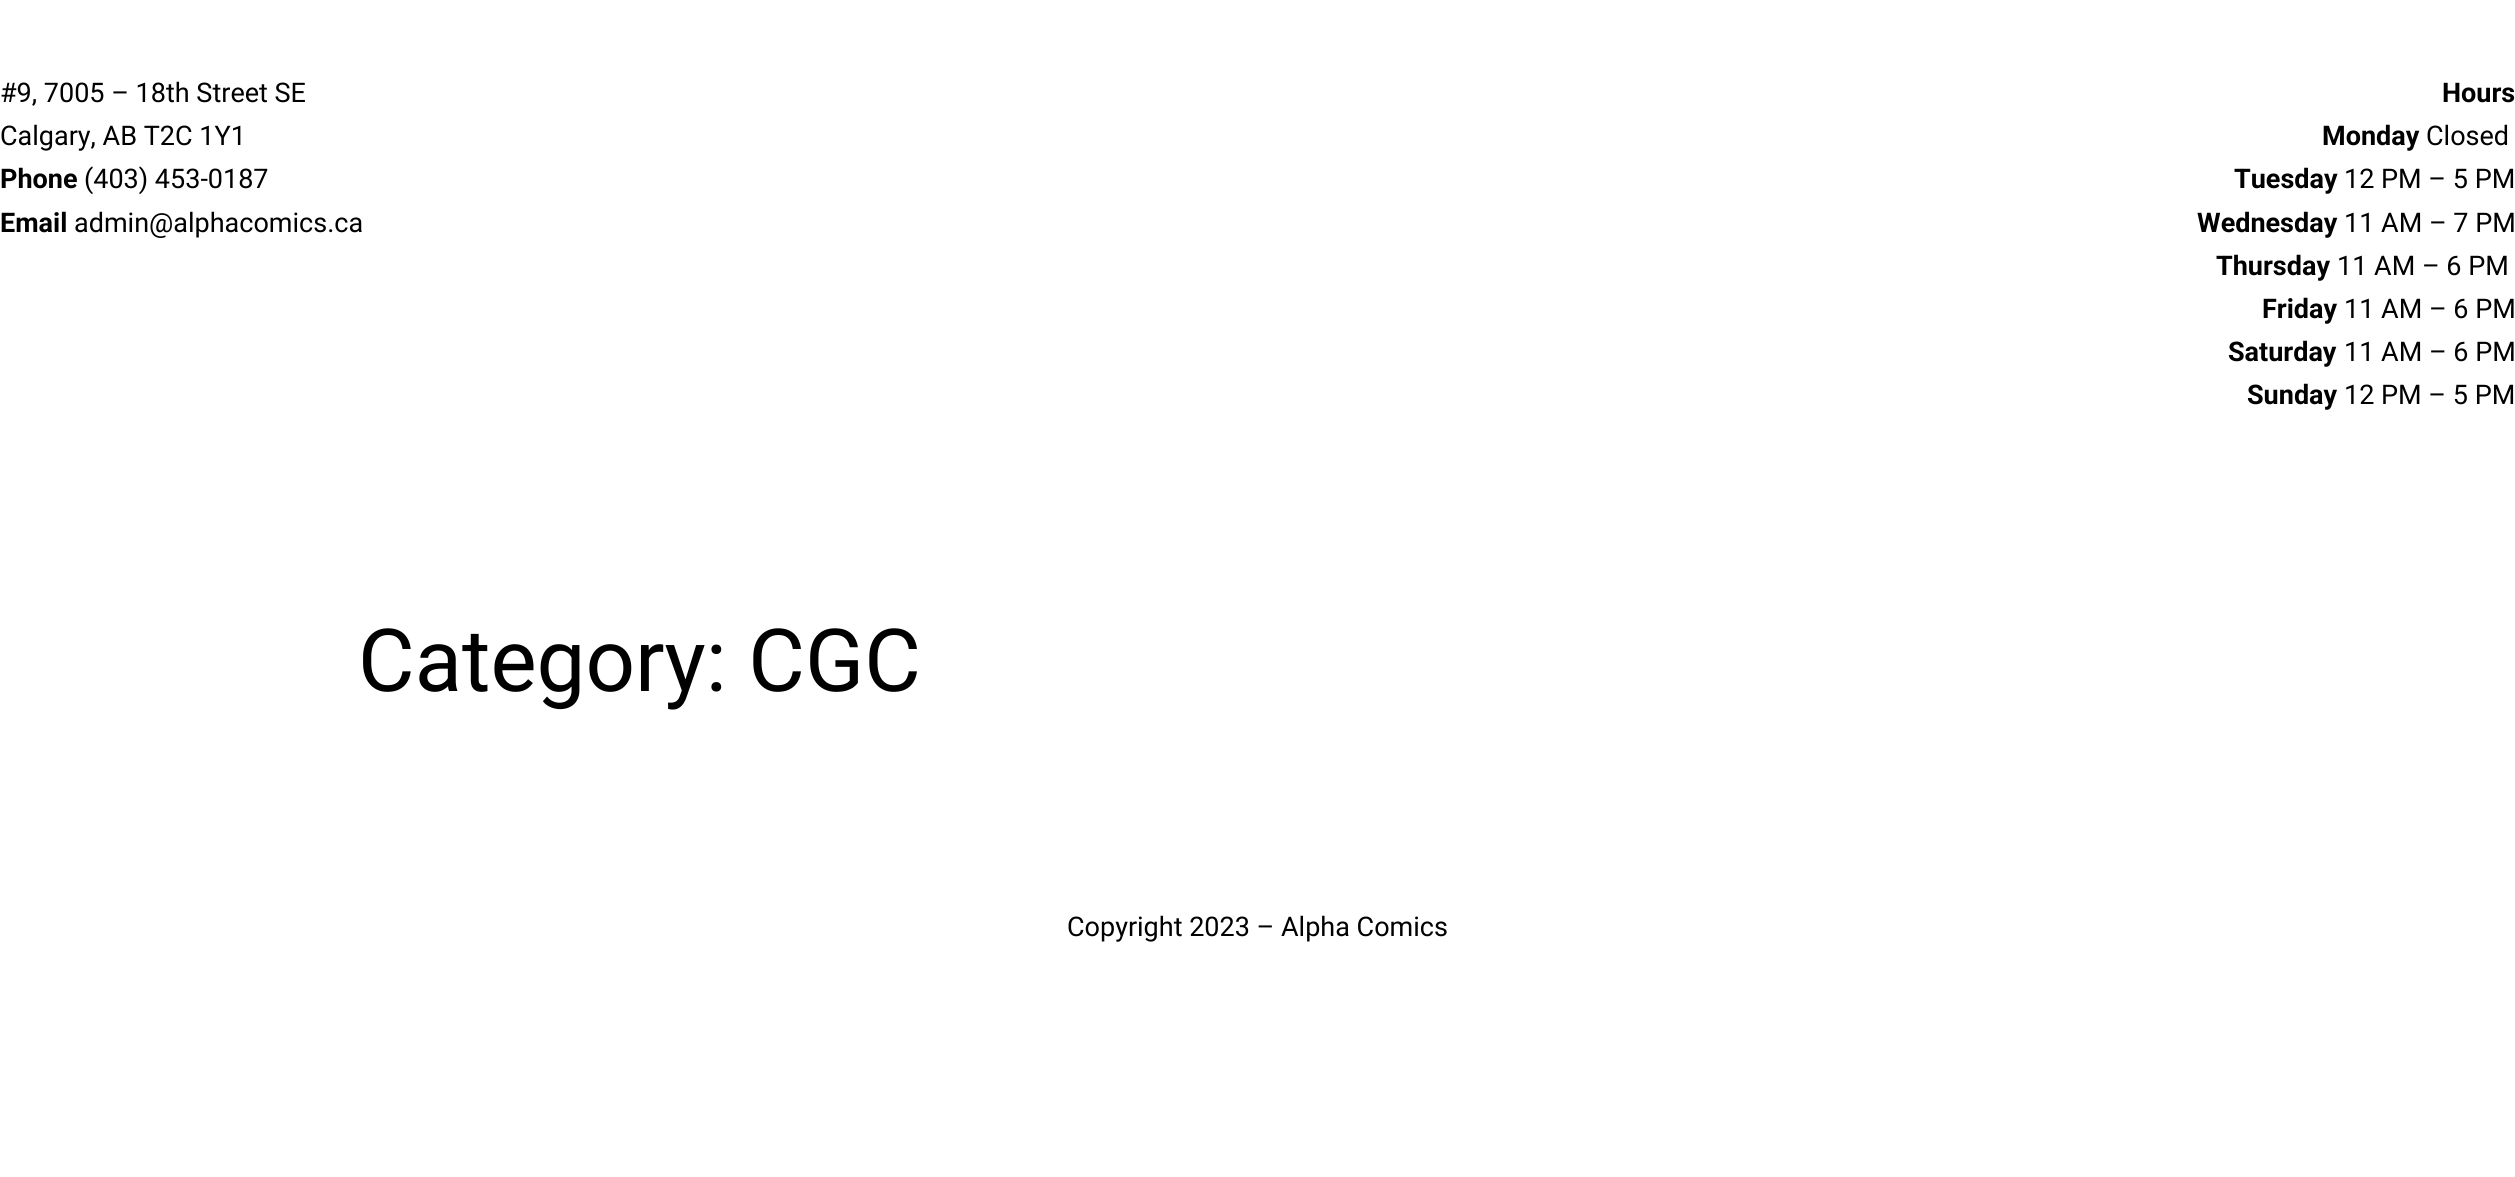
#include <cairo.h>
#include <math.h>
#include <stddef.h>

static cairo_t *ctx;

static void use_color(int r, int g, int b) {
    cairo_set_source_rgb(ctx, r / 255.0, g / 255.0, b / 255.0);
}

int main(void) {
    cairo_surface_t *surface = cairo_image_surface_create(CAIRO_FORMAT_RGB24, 2515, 1177);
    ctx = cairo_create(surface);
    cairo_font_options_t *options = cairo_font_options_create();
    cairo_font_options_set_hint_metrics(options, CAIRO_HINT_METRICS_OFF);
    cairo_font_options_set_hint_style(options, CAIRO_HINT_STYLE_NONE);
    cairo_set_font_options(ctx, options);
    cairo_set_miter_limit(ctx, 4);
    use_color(255, 255, 255);
    cairo_paint(ctx);
    cairo_select_font_face(ctx, "Roboto", CAIRO_FONT_SLANT_NORMAL, CAIRO_FONT_WEIGHT_NORMAL);
    cairo_set_font_size(ctx, 27);
    use_color(0, 0, 0);
    cairo_move_to(ctx, 0, 102);
    cairo_show_text(ctx, "#9, 7005 – 18th Street SE");
    cairo_move_to(ctx, 0, 145);
    cairo_show_text(ctx, "Calgary, AB T2C 1Y1");
    cairo_select_font_face(ctx, "Roboto", CAIRO_FONT_SLANT_NORMAL, CAIRO_FONT_WEIGHT_BOLD);
    cairo_move_to(ctx, 0, 188);
    cairo_show_text(ctx, "Phone");
    cairo_select_font_face(ctx, "Roboto", CAIRO_FONT_SLANT_NORMAL, CAIRO_FONT_WEIGHT_NORMAL);
    cairo_move_to(ctx, 84, 188);
    cairo_show_text(ctx, "(403) 453-0187");
    cairo_select_font_face(ctx, "Roboto", CAIRO_FONT_SLANT_NORMAL, CAIRO_FONT_WEIGHT_BOLD);
    cairo_move_to(ctx, 0, 232);
    cairo_show_text(ctx, "Email");
    cairo_select_font_face(ctx, "Roboto", CAIRO_FONT_SLANT_NORMAL, CAIRO_FONT_WEIGHT_NORMAL);
    cairo_move_to(ctx, 74, 232);
    cairo_show_text(ctx, "admin@alphacomics.ca");
    cairo_select_font_face(ctx, "Roboto", CAIRO_FONT_SLANT_NORMAL, CAIRO_FONT_WEIGHT_BOLD);
    cairo_move_to(ctx, 2442, 102);
    cairo_show_text(ctx, "Hours");
    cairo_move_to(ctx, 2322, 145);
    cairo_show_text(ctx, "Monday");
    cairo_select_font_face(ctx, "Roboto", CAIRO_FONT_SLANT_NORMAL, CAIRO_FONT_WEIGHT_NORMAL);
    cairo_move_to(ctx, 2426, 145);
    cairo_show_text(ctx, "Closed");
    cairo_select_font_face(ctx, "Roboto", CAIRO_FONT_SLANT_NORMAL, CAIRO_FONT_WEIGHT_BOLD);
    cairo_move_to(ctx, 2234, 188);
    cairo_show_text(ctx, "Tuesday");
    cairo_select_font_face(ctx, "Roboto", CAIRO_FONT_SLANT_NORMAL, CAIRO_FONT_WEIGHT_NORMAL);
    cairo_move_to(ctx, 2344, 188);
    cairo_show_text(ctx, "12 PM – 5 PM");
    cairo_select_font_face(ctx, "Roboto", CAIRO_FONT_SLANT_NORMAL, CAIRO_FONT_WEIGHT_BOLD);
    cairo_move_to(ctx, 2197, 232);
    cairo_show_text(ctx, "Wednesday");
    cairo_select_font_face(ctx, "Roboto", CAIRO_FONT_SLANT_NORMAL, CAIRO_FONT_WEIGHT_NORMAL);
    cairo_move_to(ctx, 2344, 232);
    cairo_show_text(ctx, "11 AM – 7 PM");
    cairo_select_font_face(ctx, "Roboto", CAIRO_FONT_SLANT_NORMAL, CAIRO_FONT_WEIGHT_BOLD);
    cairo_move_to(ctx, 2216, 275);
    cairo_show_text(ctx, "Thursday");
    cairo_select_font_face(ctx, "Roboto", CAIRO_FONT_SLANT_NORMAL, CAIRO_FONT_WEIGHT_NORMAL);
    cairo_move_to(ctx, 2337, 275);
    cairo_show_text(ctx, "11 AM – 6 PM");
    cairo_select_font_face(ctx, "Roboto", CAIRO_FONT_SLANT_NORMAL, CAIRO_FONT_WEIGHT_BOLD);
    cairo_move_to(ctx, 2262, 318);
    cairo_show_text(ctx, "Friday");
    cairo_select_font_face(ctx, "Roboto", CAIRO_FONT_SLANT_NORMAL, CAIRO_FONT_WEIGHT_NORMAL);
    cairo_move_to(ctx, 2344, 318);
    cairo_show_text(ctx, "11 AM – 6 PM");
    cairo_select_font_face(ctx, "Roboto", CAIRO_FONT_SLANT_NORMAL, CAIRO_FONT_WEIGHT_BOLD);
    cairo_move_to(ctx, 2228, 361);
    cairo_show_text(ctx, "Saturday");
    cairo_select_font_face(ctx, "Roboto", CAIRO_FONT_SLANT_NORMAL, CAIRO_FONT_WEIGHT_NORMAL);
    cairo_move_to(ctx, 2344, 361);
    cairo_show_text(ctx, "11 AM – 6 PM");
    cairo_select_font_face(ctx, "Roboto", CAIRO_FONT_SLANT_NORMAL, CAIRO_FONT_WEIGHT_BOLD);
    cairo_move_to(ctx, 2247, 404);
    cairo_show_text(ctx, "Sunday");
    cairo_select_font_face(ctx, "Roboto", CAIRO_FONT_SLANT_NORMAL, CAIRO_FONT_WEIGHT_NORMAL);
    cairo_move_to(ctx, 2344, 404);
    cairo_show_text(ctx, "12 PM – 5 PM");
    cairo_set_font_size(ctx, 87);
    cairo_move_to(ctx, 358, 691);
    cairo_show_text(ctx, "Category: CGC");
    cairo_set_font_size(ctx, 27);
    cairo_move_to(ctx, 1067, 936);
    cairo_show_text(ctx, "Copyright 2023 – Alpha Comics");
    cairo_surface_write_to_png(surface, "result.png");
    cairo_font_options_destroy(options);
    cairo_destroy(ctx);
    cairo_surface_destroy(surface);
    return 0;
}
